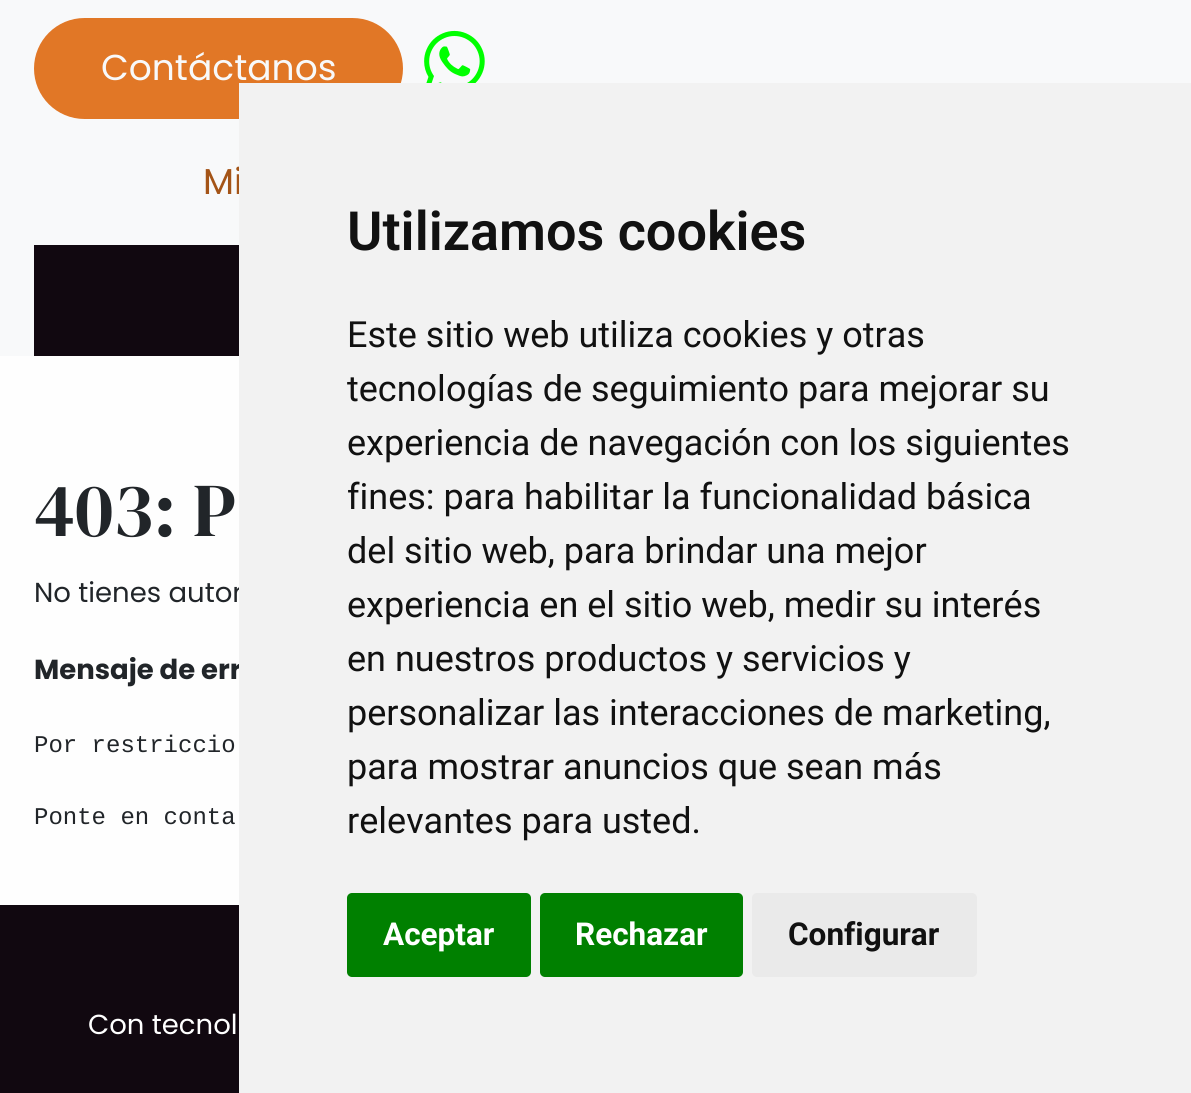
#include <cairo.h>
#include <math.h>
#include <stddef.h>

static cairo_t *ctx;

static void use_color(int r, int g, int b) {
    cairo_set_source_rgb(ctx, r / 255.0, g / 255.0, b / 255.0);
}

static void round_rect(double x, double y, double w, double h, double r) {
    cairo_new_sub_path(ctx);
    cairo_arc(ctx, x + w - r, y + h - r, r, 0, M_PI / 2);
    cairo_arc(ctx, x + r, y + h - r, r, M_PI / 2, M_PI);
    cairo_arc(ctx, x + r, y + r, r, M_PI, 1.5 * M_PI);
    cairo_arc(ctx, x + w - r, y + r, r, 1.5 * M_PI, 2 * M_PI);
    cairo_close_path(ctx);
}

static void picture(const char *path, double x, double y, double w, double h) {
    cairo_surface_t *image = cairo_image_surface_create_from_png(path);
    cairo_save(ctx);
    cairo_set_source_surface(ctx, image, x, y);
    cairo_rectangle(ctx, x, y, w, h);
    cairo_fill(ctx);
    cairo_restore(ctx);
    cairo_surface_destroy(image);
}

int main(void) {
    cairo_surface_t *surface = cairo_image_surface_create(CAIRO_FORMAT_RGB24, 1191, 1093);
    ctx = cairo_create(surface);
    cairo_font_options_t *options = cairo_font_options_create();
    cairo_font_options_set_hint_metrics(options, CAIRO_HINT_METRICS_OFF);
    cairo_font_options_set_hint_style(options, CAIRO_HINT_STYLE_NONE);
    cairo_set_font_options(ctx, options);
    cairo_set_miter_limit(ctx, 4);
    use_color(248, 249, 250);
    cairo_paint(ctx);
    use_color(225, 119, 38);
    round_rect(34, 18, 369, 101, 50.5);
    cairo_fill(ctx);
    cairo_select_font_face(ctx, "Poppins", CAIRO_FONT_SLANT_NORMAL, CAIRO_FONT_WEIGHT_NORMAL);
    cairo_set_font_size(ctx, 36);
    use_color(248, 249, 250);
    cairo_move_to(ctx, 101, 80);
    cairo_show_text(ctx, "Contáctanos");
    picture("img1.png", 424, 30, 61, 53);
    use_color(164, 84, 23);
    cairo_move_to(ctx, 203, 194);
    cairo_show_text(ctx, "Mi");
    use_color(17, 8, 16);
    cairo_rectangle(ctx, 34, 245, 205, 111);
    cairo_fill(ctx);
    use_color(254, 254, 254);
    cairo_rectangle(ctx, 0, 356, 239, 549);
    cairo_fill(ctx);
    cairo_select_font_face(ctx, "DM Serif Display", CAIRO_FONT_SLANT_NORMAL, CAIRO_FONT_WEIGHT_NORMAL);
    cairo_set_font_size(ctx, 76);
    use_color(33, 37, 41);
    cairo_move_to(ctx, 34, 536);
    cairo_show_text(ctx, "403: P");
    cairo_select_font_face(ctx, "Poppins", CAIRO_FONT_SLANT_NORMAL, CAIRO_FONT_WEIGHT_NORMAL);
    cairo_set_font_size(ctx, 27.5);
    cairo_move_to(ctx, 34, 602);
    cairo_show_text(ctx, "No tienes autor");
    cairo_select_font_face(ctx, "Poppins", CAIRO_FONT_SLANT_NORMAL, CAIRO_FONT_WEIGHT_BOLD);
    cairo_move_to(ctx, 34, 679);
    cairo_show_text(ctx, "Mensaje de err");
    cairo_select_font_face(ctx, "Liberation Mono", CAIRO_FONT_SLANT_NORMAL, CAIRO_FONT_WEIGHT_NORMAL);
    cairo_set_font_size(ctx, 24);
    cairo_move_to(ctx, 34, 752);
    cairo_show_text(ctx, "Por restriccio");
    cairo_move_to(ctx, 34, 824);
    cairo_show_text(ctx, "Ponte en conta");
    use_color(17, 8, 16);
    cairo_rectangle(ctx, 0, 905, 239, 188);
    cairo_fill(ctx);
    cairo_select_font_face(ctx, "Poppins", CAIRO_FONT_SLANT_NORMAL, CAIRO_FONT_WEIGHT_NORMAL);
    cairo_set_font_size(ctx, 27.5);
    use_color(255, 255, 255);
    cairo_move_to(ctx, 88, 1034);
    cairo_show_text(ctx, "Con tecnol");
    use_color(242, 242, 242);
    cairo_rectangle(ctx, 239, 83, 952, 1010);
    cairo_fill(ctx);
    cairo_select_font_face(ctx, "Roboto SemiBold", CAIRO_FONT_SLANT_NORMAL, CAIRO_FONT_WEIGHT_NORMAL);
    cairo_set_font_size(ctx, 54);
    use_color(17, 17, 17);
    cairo_move_to(ctx, 347, 250);
    cairo_show_text(ctx, "Utilizamos cookies");
    cairo_select_font_face(ctx, "Roboto", CAIRO_FONT_SLANT_NORMAL, CAIRO_FONT_WEIGHT_NORMAL);
    cairo_set_font_size(ctx, 36);
    cairo_move_to(ctx, 347, 347);
    cairo_show_text(ctx, "Este sitio web utiliza cookies y otras");
    cairo_move_to(ctx, 347, 401);
    cairo_show_text(ctx, "tecnologías de seguimiento para mejorar su");
    cairo_move_to(ctx, 347, 455);
    cairo_show_text(ctx, "experiencia de navegación con los siguientes");
    cairo_move_to(ctx, 347, 509);
    cairo_show_text(ctx, "fines: para habilitar la funcionalidad básica");
    cairo_move_to(ctx, 347, 563);
    cairo_show_text(ctx, "del sitio web, para brindar una mejor");
    cairo_move_to(ctx, 347, 617);
    cairo_show_text(ctx, "experiencia en el sitio web, medir su interés");
    cairo_move_to(ctx, 347, 671);
    cairo_show_text(ctx, "en nuestros productos y servicios y");
    cairo_move_to(ctx, 347, 725);
    cairo_show_text(ctx, "personalizar las interacciones de marketing,");
    cairo_move_to(ctx, 347, 779);
    cairo_show_text(ctx, "para mostrar anuncios que sean más");
    cairo_move_to(ctx, 347, 833);
    cairo_show_text(ctx, "relevantes para usted.");
    use_color(0, 128, 0);
    round_rect(347, 893, 184, 84, 5);
    cairo_fill(ctx);
    cairo_select_font_face(ctx, "Roboto", CAIRO_FONT_SLANT_NORMAL, CAIRO_FONT_WEIGHT_BOLD);
    cairo_set_font_size(ctx, 31.5);
    use_color(255, 255, 255);
    cairo_move_to(ctx, 383, 945);
    cairo_show_text(ctx, "Aceptar");
    use_color(0, 128, 0);
    round_rect(540, 893, 203, 84, 5);
    cairo_fill(ctx);
    use_color(255, 255, 255);
    cairo_move_to(ctx, 575, 945);
    cairo_show_text(ctx, "Rechazar");
    use_color(234, 234, 234);
    round_rect(752, 893, 225, 84, 5);
    cairo_fill(ctx);
    use_color(17, 17, 17);
    cairo_move_to(ctx, 788, 945);
    cairo_show_text(ctx, "Configurar");
    cairo_surface_write_to_png(surface, "result.png");
    cairo_font_options_destroy(options);
    cairo_destroy(ctx);
    cairo_surface_destroy(surface);
    return 0;
}
